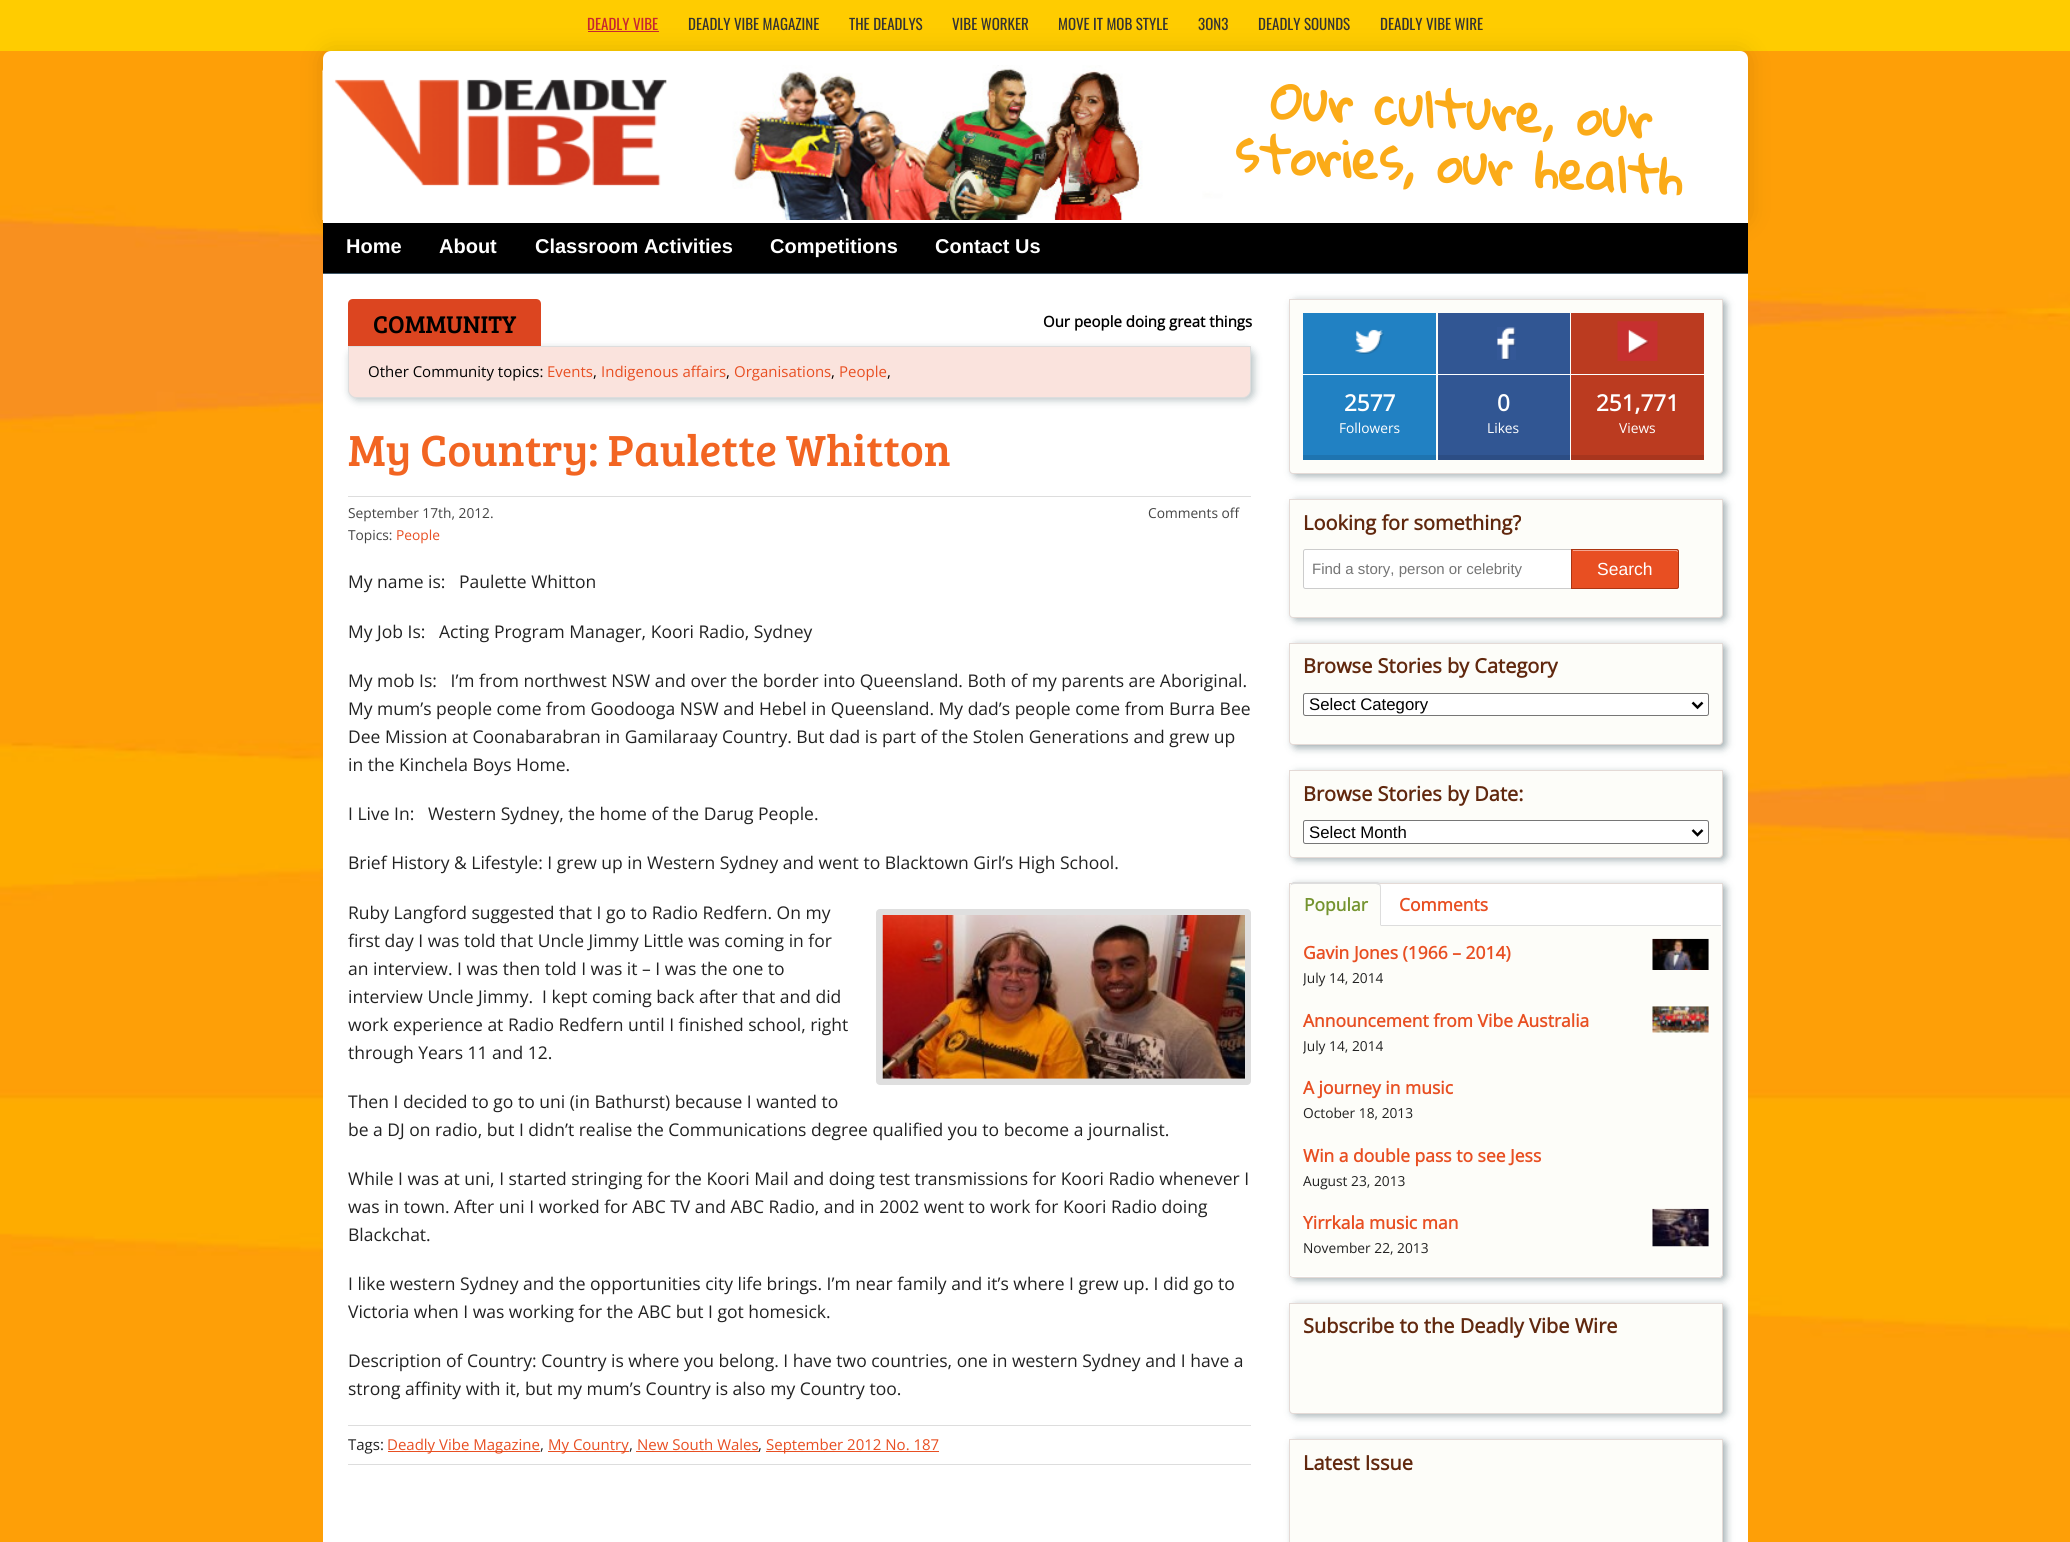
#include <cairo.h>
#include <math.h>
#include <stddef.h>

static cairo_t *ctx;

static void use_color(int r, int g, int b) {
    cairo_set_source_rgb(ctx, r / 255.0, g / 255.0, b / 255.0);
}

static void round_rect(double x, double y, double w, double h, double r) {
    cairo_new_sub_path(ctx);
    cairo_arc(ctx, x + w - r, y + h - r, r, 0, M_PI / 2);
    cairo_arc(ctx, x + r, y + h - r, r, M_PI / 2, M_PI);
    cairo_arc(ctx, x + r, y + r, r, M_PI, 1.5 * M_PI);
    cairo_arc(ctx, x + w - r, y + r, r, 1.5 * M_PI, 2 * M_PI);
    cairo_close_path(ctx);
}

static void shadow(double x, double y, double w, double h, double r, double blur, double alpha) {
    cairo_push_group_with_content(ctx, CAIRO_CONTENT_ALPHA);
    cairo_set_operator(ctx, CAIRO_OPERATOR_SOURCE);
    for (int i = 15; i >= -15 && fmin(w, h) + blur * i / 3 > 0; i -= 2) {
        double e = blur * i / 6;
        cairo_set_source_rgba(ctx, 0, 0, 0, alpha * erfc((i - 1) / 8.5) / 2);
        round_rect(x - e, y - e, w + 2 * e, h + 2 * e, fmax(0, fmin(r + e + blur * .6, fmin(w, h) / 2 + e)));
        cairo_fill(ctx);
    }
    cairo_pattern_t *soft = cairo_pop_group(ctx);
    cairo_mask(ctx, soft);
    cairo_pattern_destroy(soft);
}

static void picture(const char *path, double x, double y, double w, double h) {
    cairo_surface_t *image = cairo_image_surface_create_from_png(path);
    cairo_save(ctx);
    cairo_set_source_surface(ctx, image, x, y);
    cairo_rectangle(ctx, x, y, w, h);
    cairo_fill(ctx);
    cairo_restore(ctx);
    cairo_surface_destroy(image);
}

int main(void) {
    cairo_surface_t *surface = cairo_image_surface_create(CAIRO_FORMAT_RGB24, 2070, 1542);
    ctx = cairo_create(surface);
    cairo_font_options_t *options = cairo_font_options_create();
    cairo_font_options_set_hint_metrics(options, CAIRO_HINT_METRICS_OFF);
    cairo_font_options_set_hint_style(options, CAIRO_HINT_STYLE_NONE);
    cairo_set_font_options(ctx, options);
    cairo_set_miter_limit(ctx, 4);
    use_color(255, 255, 255);
    cairo_paint(ctx);
    picture("img1.png", 0, 51, 2070, 1491);
    use_color(255, 204, 0);
    cairo_rectangle(ctx, 0, 0, 2070, 51);
    cairo_fill(ctx);
    cairo_select_font_face(ctx, "Oswald", CAIRO_FONT_SLANT_NORMAL, CAIRO_FONT_WEIGHT_NORMAL);
    cairo_set_font_size(ctx, 15);
    use_color(199, 39, 48);
    cairo_move_to(ctx, 587, 30);
    cairo_show_text(ctx, "DEADLY VIBE");
    cairo_rectangle(ctx, 588, 31, 71, 1);
    cairo_fill(ctx);
    use_color(51, 51, 51);
    cairo_move_to(ctx, 688, 30);
    cairo_show_text(ctx, "DEADLY VIBE MAGAZINE");
    cairo_move_to(ctx, 849, 30);
    cairo_show_text(ctx, "THE DEADLYS");
    cairo_move_to(ctx, 952, 30);
    cairo_show_text(ctx, "VIBE WORKER");
    cairo_move_to(ctx, 1058, 30);
    cairo_show_text(ctx, "MOVE IT MOB STYLE");
    cairo_move_to(ctx, 1198, 30);
    cairo_show_text(ctx, "3ON3");
    cairo_move_to(ctx, 1258, 30);
    cairo_show_text(ctx, "DEADLY SOUNDS");
    cairo_move_to(ctx, 1380, 30);
    cairo_show_text(ctx, "DEADLY VIBE WIRE");
    use_color(0, 0, 0);
    shadow(323, 51, 1425, 172, 8, 12.5, 0.12);
    use_color(255, 255, 255);
    cairo_new_path(ctx);
    cairo_move_to(ctx, 331, 51);
    cairo_line_to(ctx, 1740, 51);
    cairo_curve_to(ctx, 1744.5, 51, 1748, 54.5, 1748, 59);
    cairo_line_to(ctx, 1748, 223);
    cairo_line_to(ctx, 323, 223);
    cairo_line_to(ctx, 323, 59);
    cairo_curve_to(ctx, 323, 54.5, 326.5, 51, 331, 51);
    cairo_close_path(ctx);
    cairo_fill(ctx);
    picture("img2.png", 322, 65, 1352, 155);
    picture("img3.png", 334, 79, 333, 107);
    cairo_select_font_face(ctx, "Gloria Hallelujah", CAIRO_FONT_SLANT_NORMAL, CAIRO_FONT_WEIGHT_BOLD);
    cairo_set_font_size(ctx, 50);
    use_color(251, 171, 24);
    cairo_save(ctx);
    cairo_translate(ctx, 1270, 119);
    cairo_rotate(ctx, 3 * M_PI / 180);
    cairo_move_to(ctx, 0, 0);
    cairo_show_text(ctx, "Our culture, our");
    cairo_restore(ctx);
    cairo_save(ctx);
    cairo_translate(ctx, 1234, 172);
    cairo_rotate(ctx, 3 * M_PI / 180);
    cairo_move_to(ctx, 0, 0);
    cairo_show_text(ctx, "stories, our health");
    cairo_restore(ctx);
    use_color(63, 86, 101);
    cairo_rectangle(ctx, 323, 273, 1425, 1);
    cairo_fill(ctx);
    use_color(0, 0, 0);
    cairo_rectangle(ctx, 323, 223, 1425, 50);
    cairo_fill(ctx);
    cairo_select_font_face(ctx, "Liberation Sans", CAIRO_FONT_SLANT_NORMAL, CAIRO_FONT_WEIGHT_BOLD);
    cairo_set_font_size(ctx, 20);
    use_color(255, 255, 255);
    cairo_move_to(ctx, 346, 253);
    cairo_show_text(ctx, "Home");
    cairo_move_to(ctx, 439, 253);
    cairo_show_text(ctx, "About");
    cairo_move_to(ctx, 535, 253);
    cairo_show_text(ctx, "Classroom Activities");
    cairo_move_to(ctx, 770, 253);
    cairo_show_text(ctx, "Competitions");
    cairo_move_to(ctx, 935, 253);
    cairo_show_text(ctx, "Contact Us");
    cairo_rectangle(ctx, 323, 274, 1425, 1268);
    cairo_fill(ctx);
    use_color(19, 52, 59);
    shadow(350, 349, 904, 51, 8, 4, 0.3);
    use_color(220, 69, 32);
    cairo_new_path(ctx);
    cairo_move_to(ctx, 353, 299);
    cairo_line_to(ctx, 536, 299);
    cairo_curve_to(ctx, 539, 299, 541, 301, 541, 304);
    cairo_line_to(ctx, 541, 346);
    cairo_line_to(ctx, 348, 346);
    cairo_line_to(ctx, 348, 304);
    cairo_curve_to(ctx, 348, 301, 350, 299, 353, 299);
    cairo_close_path(ctx);
    cairo_fill(ctx);
    cairo_select_font_face(ctx, "Bree Serif", CAIRO_FONT_SLANT_NORMAL, CAIRO_FONT_WEIGHT_NORMAL);
    cairo_set_font_size(ctx, 25);
    use_color(0, 0, 0);
    cairo_move_to(ctx, 373, 333);
    cairo_show_text(ctx, "COMMUNITY");
    cairo_select_font_face(ctx, "Open Sans", CAIRO_FONT_SLANT_NORMAL, CAIRO_FONT_WEIGHT_BOLD);
    cairo_set_font_size(ctx, 15);
    cairo_move_to(ctx, 1043, 327);
    cairo_show_text(ctx, "Our people doing great things");
    use_color(250, 227, 221);
    cairo_new_path(ctx);
    cairo_move_to(ctx, 348.5, 346.5);
    cairo_line_to(ctx, 1250.5, 346.5);
    cairo_line_to(ctx, 1250.5, 390);
    cairo_curve_to(ctx, 1250.5, 394, 1247, 397.5, 1243, 397.5);
    cairo_line_to(ctx, 356, 397.5);
    cairo_curve_to(ctx, 352, 397.5, 348.5, 394, 348.5, 390);
    cairo_close_path(ctx);
    cairo_fill_preserve(ctx);
    use_color(221, 221, 221);
    cairo_set_line_width(ctx, 1);
    cairo_stroke(ctx);
    cairo_select_font_face(ctx, "Open Sans", CAIRO_FONT_SLANT_NORMAL, CAIRO_FONT_WEIGHT_NORMAL);
    use_color(0, 0, 0);
    cairo_move_to(ctx, 368, 377);
    cairo_show_text(ctx, "Other Community topics:");
    use_color(232, 79, 34);
    cairo_move_to(ctx, 547, 377);
    cairo_show_text(ctx, "Events");
    use_color(0, 0, 0);
    cairo_move_to(ctx, 593, 377);
    cairo_show_text(ctx, ",");
    use_color(232, 79, 34);
    cairo_move_to(ctx, 601, 377);
    cairo_show_text(ctx, "Indigenous affairs");
    use_color(0, 0, 0);
    cairo_move_to(ctx, 726, 377);
    cairo_show_text(ctx, ",");
    use_color(232, 79, 34);
    cairo_move_to(ctx, 734, 377);
    cairo_show_text(ctx, "Organisations");
    use_color(0, 0, 0);
    cairo_move_to(ctx, 831, 377);
    cairo_show_text(ctx, ",");
    use_color(232, 79, 34);
    cairo_move_to(ctx, 839, 377);
    cairo_show_text(ctx, "People");
    use_color(0, 0, 0);
    cairo_move_to(ctx, 887, 377);
    cairo_show_text(ctx, ",");
    cairo_select_font_face(ctx, "Bree Serif", CAIRO_FONT_SLANT_NORMAL, CAIRO_FONT_WEIGHT_NORMAL);
    cairo_set_font_size(ctx, 45);
    use_color(242, 101, 34);
    cairo_move_to(ctx, 348, 466);
    cairo_show_text(ctx, "My Country: Paulette Whitton");
    use_color(221, 221, 221);
    cairo_rectangle(ctx, 348, 496, 903, 1);
    cairo_fill(ctx);
    cairo_select_font_face(ctx, "Open Sans", CAIRO_FONT_SLANT_NORMAL, CAIRO_FONT_WEIGHT_NORMAL);
    cairo_set_font_size(ctx, 13.75);
    use_color(68, 68, 68);
    cairo_move_to(ctx, 348, 518);
    cairo_show_text(ctx, "September 17th, 2012.");
    cairo_move_to(ctx, 1148, 518);
    cairo_show_text(ctx, "Comments off");
    cairo_move_to(ctx, 348, 540);
    cairo_show_text(ctx, "Topics:");
    use_color(232, 79, 34);
    cairo_move_to(ctx, 396, 540);
    cairo_show_text(ctx, "People");
    cairo_set_font_size(ctx, 17.5);
    use_color(34, 34, 34);
    cairo_move_to(ctx, 348, 588);
    cairo_show_text(ctx, "My name is:   Paulette Whitton");
    cairo_move_to(ctx, 348, 638);
    cairo_show_text(ctx, "My Job Is:   Acting Program Manager, Koori Radio, Sydney");
    cairo_move_to(ctx, 348, 687);
    cairo_show_text(ctx, "My mob Is:   I’m from northwest NSW and over the border into Queensland. Both of my parents are Aboriginal.");
    cairo_move_to(ctx, 348, 715);
    cairo_show_text(ctx, "My mum’s people come from Goodooga NSW and Hebel in Queensland. My dad’s people come from Burra Bee");
    cairo_move_to(ctx, 348, 743);
    cairo_show_text(ctx, "Dee Mission at Coonabarabran in Gamilaraay Country. But dad is part of the Stolen Generations and grew up");
    cairo_move_to(ctx, 348, 771);
    cairo_show_text(ctx, "in the Kinchela Boys Home.");
    cairo_move_to(ctx, 348, 820);
    cairo_show_text(ctx, "I Live In:   Western Sydney, the home of the Darug People.");
    cairo_move_to(ctx, 348, 869);
    cairo_show_text(ctx, "Brief History & Lifestyle: I grew up in Western Sydney and went to Blacktown Girl’s High School.");
    cairo_move_to(ctx, 348, 919);
    cairo_show_text(ctx, "Ruby Langford suggested that I go to Radio Redfern. On my");
    use_color(223, 223, 223);
    round_rect(876, 909, 375, 176, 4);
    cairo_fill(ctx);
    picture("img4.png", 882, 915, 363, 164);
    use_color(34, 34, 34);
    cairo_move_to(ctx, 348, 947);
    cairo_show_text(ctx, "first day I was told that Uncle Jimmy Little was coming in for");
    cairo_move_to(ctx, 348, 975);
    cairo_show_text(ctx, "an interview. I was then told I was it – I was the one to");
    cairo_move_to(ctx, 348, 1003);
    cairo_show_text(ctx, "interview Uncle Jimmy.  I kept coming back after that and did");
    cairo_move_to(ctx, 348, 1031);
    cairo_show_text(ctx, "work experience at Radio Redfern until I finished school, right");
    cairo_move_to(ctx, 348, 1059);
    cairo_show_text(ctx, "through Years 11 and 12.");
    cairo_move_to(ctx, 348, 1108);
    cairo_show_text(ctx, "Then I decided to go to uni (in Bathurst) because I wanted to");
    cairo_move_to(ctx, 348, 1136);
    cairo_show_text(ctx, "be a DJ on radio, but I didn’t realise the Communications degree qualified you to become a journalist.");
    cairo_move_to(ctx, 348, 1185);
    cairo_show_text(ctx, "While I was at uni, I started stringing for the Koori Mail and doing test transmissions for Koori Radio whenever I");
    cairo_move_to(ctx, 348, 1213);
    cairo_show_text(ctx, "was in town. After uni I worked for ABC TV and ABC Radio, and in 2002 went to work for Koori Radio doing");
    cairo_move_to(ctx, 348, 1241);
    cairo_show_text(ctx, "Blackchat.");
    cairo_move_to(ctx, 348, 1290);
    cairo_show_text(ctx, "I like western Sydney and the opportunities city life brings. I’m near family and it’s where I grew up. I did go to");
    cairo_move_to(ctx, 348, 1318);
    cairo_show_text(ctx, "Victoria when I was working for the ABC but I got homesick.");
    cairo_move_to(ctx, 348, 1367);
    cairo_show_text(ctx, "Description of Country: Country is where you belong. I have two countries, one in western Sydney and I have a");
    cairo_move_to(ctx, 348, 1395);
    cairo_show_text(ctx, "strong affinity with it, but my mum’s Country is also my Country too.");
    use_color(221, 221, 221);
    cairo_rectangle(ctx, 348, 1425, 903, 1);
    cairo_fill(ctx);
    cairo_set_font_size(ctx, 15);
    use_color(34, 34, 34);
    cairo_move_to(ctx, 348, 1450);
    cairo_show_text(ctx, "Tags:");
    use_color(232, 79, 34);
    cairo_rectangle(ctx, 388, 1451, 152, 1);
    cairo_fill(ctx);
    cairo_move_to(ctx, 387, 1450);
    cairo_show_text(ctx, "Deadly Vibe Magazine");
    use_color(34, 34, 34);
    cairo_move_to(ctx, 540, 1450);
    cairo_show_text(ctx, ",");
    use_color(232, 79, 34);
    cairo_rectangle(ctx, 548, 1451, 81, 1);
    cairo_fill(ctx);
    cairo_move_to(ctx, 548, 1450);
    cairo_show_text(ctx, "My Country");
    use_color(34, 34, 34);
    cairo_move_to(ctx, 629, 1450);
    cairo_show_text(ctx, ",");
    use_color(232, 79, 34);
    cairo_move_to(ctx, 637, 1450);
    cairo_show_text(ctx, "New South Wales");
    cairo_rectangle(ctx, 636, 1451, 123, 1);
    cairo_fill(ctx);
    use_color(34, 34, 34);
    cairo_move_to(ctx, 758, 1450);
    cairo_show_text(ctx, ",");
    use_color(232, 79, 34);
    cairo_rectangle(ctx, 766, 1451, 173, 1);
    cairo_fill(ctx);
    cairo_move_to(ctx, 766, 1450);
    cairo_show_text(ctx, "September 2012 No. 187");
    use_color(221, 221, 221);
    cairo_rectangle(ctx, 348, 1464, 903, 1);
    cairo_fill(ctx);
    use_color(19, 52, 59);
    shadow(1293, 301, 433, 175, 4, 4, 0.4);
    use_color(253, 253, 249);
    cairo_new_path(ctx);
    cairo_move_to(ctx, 1289.5, 299.5);
    cairo_line_to(ctx, 1722.5, 299.5);
    cairo_line_to(ctx, 1722.5, 470);
    cairo_curve_to(ctx, 1722.5, 472, 1721, 473.5, 1719, 473.5);
    cairo_line_to(ctx, 1293, 473.5);
    cairo_curve_to(ctx, 1291, 473.5, 1289.5, 472, 1289.5, 470);
    cairo_close_path(ctx);
    cairo_fill_preserve(ctx);
    use_color(228, 218, 214);
    cairo_stroke(ctx);
    use_color(33, 129, 195);
    cairo_rectangle(ctx, 1303, 313, 133, 142);
    cairo_fill(ctx);
    use_color(30, 116, 176);
    cairo_rectangle(ctx, 1303, 455, 133, 5);
    cairo_fill(ctx);
    picture("img5.png", 1355, 329, 29, 25);
    use_color(255, 255, 255);
    cairo_rectangle(ctx, 1303, 374, 133, 1);
    cairo_fill(ctx);
    cairo_select_font_face(ctx, "Open Sans", CAIRO_FONT_SLANT_NORMAL, CAIRO_FONT_WEIGHT_BOLD);
    cairo_set_font_size(ctx, 22.5);
    cairo_move_to(ctx, 1344, 411);
    cairo_show_text(ctx, "2577");
    cairo_select_font_face(ctx, "Open Sans", CAIRO_FONT_SLANT_NORMAL, CAIRO_FONT_WEIGHT_NORMAL);
    cairo_set_font_size(ctx, 13.75);
    cairo_move_to(ctx, 1339, 433);
    cairo_show_text(ctx, "Followers");
    use_color(49, 86, 147);
    cairo_rectangle(ctx, 1438, 313, 132, 142);
    cairo_fill(ctx);
    use_color(44, 77, 132);
    cairo_rectangle(ctx, 1438, 455, 132, 5);
    cairo_fill(ctx);
    picture("img6.png", 1497, 327, 19, 33);
    use_color(255, 255, 255);
    cairo_rectangle(ctx, 1438, 374, 132, 1);
    cairo_fill(ctx);
    cairo_select_font_face(ctx, "Open Sans", CAIRO_FONT_SLANT_NORMAL, CAIRO_FONT_WEIGHT_BOLD);
    cairo_set_font_size(ctx, 22.5);
    cairo_move_to(ctx, 1497, 411);
    cairo_show_text(ctx, "0");
    cairo_select_font_face(ctx, "Open Sans", CAIRO_FONT_SLANT_NORMAL, CAIRO_FONT_WEIGHT_NORMAL);
    cairo_set_font_size(ctx, 13.75);
    cairo_move_to(ctx, 1487, 433);
    cairo_show_text(ctx, "Likes");
    use_color(187, 59, 32);
    cairo_rectangle(ctx, 1571, 313, 133, 142);
    cairo_fill(ctx);
    use_color(168, 53, 29);
    cairo_rectangle(ctx, 1571, 455, 133, 5);
    cairo_fill(ctx);
    picture("img7.png", 1617, 321, 41, 40);
    use_color(255, 255, 255);
    cairo_rectangle(ctx, 1571, 374, 133, 1);
    cairo_fill(ctx);
    cairo_select_font_face(ctx, "Open Sans", CAIRO_FONT_SLANT_NORMAL, CAIRO_FONT_WEIGHT_BOLD);
    cairo_set_font_size(ctx, 22.5);
    cairo_move_to(ctx, 1596, 411);
    cairo_show_text(ctx, "251,771");
    cairo_select_font_face(ctx, "Open Sans", CAIRO_FONT_SLANT_NORMAL, CAIRO_FONT_WEIGHT_NORMAL);
    cairo_set_font_size(ctx, 13.75);
    cairo_move_to(ctx, 1619, 433);
    cairo_show_text(ctx, "Views");
    use_color(19, 52, 59);
    shadow(1293, 501, 433, 119, 4, 4, 0.4);
    use_color(253, 253, 249);
    cairo_new_path(ctx);
    cairo_move_to(ctx, 1289.5, 499.5);
    cairo_line_to(ctx, 1722.5, 499.5);
    cairo_line_to(ctx, 1722.5, 614);
    cairo_curve_to(ctx, 1722.5, 616, 1721, 617.5, 1719, 617.5);
    cairo_line_to(ctx, 1293, 617.5);
    cairo_curve_to(ctx, 1291, 617.5, 1289.5, 616, 1289.5, 614);
    cairo_close_path(ctx);
    cairo_fill_preserve(ctx);
    use_color(228, 218, 214);
    cairo_stroke(ctx);
    cairo_select_font_face(ctx, "Open Sans", CAIRO_FONT_SLANT_NORMAL, CAIRO_FONT_WEIGHT_BOLD);
    cairo_set_font_size(ctx, 20);
    use_color(97, 40, 14);
    cairo_move_to(ctx, 1303, 530);
    cairo_show_text(ctx, "Looking for something?");
    use_color(255, 255, 255);
    round_rect(1303.5, 549.5, 270, 39, 2);
    cairo_fill_preserve(ctx);
    use_color(204, 204, 204);
    cairo_stroke(ctx);
    cairo_select_font_face(ctx, "Liberation Sans", CAIRO_FONT_SLANT_NORMAL, CAIRO_FONT_WEIGHT_NORMAL);
    cairo_set_font_size(ctx, 15);
    use_color(117, 117, 117);
    cairo_move_to(ctx, 1312, 574);
    cairo_show_text(ctx, "Find a story, person or celebrity");
    use_color(232, 79, 34);
    cairo_new_path(ctx);
    cairo_move_to(ctx, 1571, 549);
    cairo_line_to(ctx, 1676.5, 549);
    cairo_curve_to(ctx, 1678, 549, 1679, 550, 1679, 551.5);
    cairo_line_to(ctx, 1679, 586.5);
    cairo_curve_to(ctx, 1679, 588, 1678, 589, 1676.5, 589);
    cairo_line_to(ctx, 1571, 589);
    cairo_close_path(ctx);
    cairo_fill(ctx);
    use_color(244, 167, 145);
    cairo_new_path(ctx);
    cairo_move_to(ctx, 1573, 550);
    cairo_line_to(ctx, 1573, 551);
    cairo_line_to(ctx, 1676, 551);
    cairo_line_to(ctx, 1678, 552);
    cairo_curve_to(ctx, 1678, 551, 1678, 550, 1677, 550);
    cairo_close_path(ctx);
    cairo_fill(ctx);
    cairo_new_path(ctx);
    cairo_move_to(ctx, 1571.5, 549.5);
    cairo_line_to(ctx, 1676.5, 549.5);
    cairo_curve_to(ctx, 1677.5, 549.5, 1678.5, 550.5, 1678.5, 551.5);
    cairo_line_to(ctx, 1678.5, 586.5);
    cairo_curve_to(ctx, 1678.5, 587.5, 1677.5, 588.5, 1676.5, 588.5);
    cairo_line_to(ctx, 1571.5, 588.5);
    cairo_close_path(ctx);
    use_color(172, 53, 18);
    cairo_stroke(ctx);
    cairo_set_font_size(ctx, 17.5);
    use_color(255, 255, 255);
    cairo_move_to(ctx, 1597, 575);
    cairo_show_text(ctx, "Search");
    use_color(19, 52, 59);
    shadow(1293, 645, 433, 103, 4, 4, 0.4);
    use_color(253, 253, 249);
    cairo_new_path(ctx);
    cairo_move_to(ctx, 1289.5, 643.5);
    cairo_line_to(ctx, 1722.5, 643.5);
    cairo_line_to(ctx, 1722.5, 741);
    cairo_curve_to(ctx, 1722.5, 743, 1721, 744.5, 1719, 744.5);
    cairo_line_to(ctx, 1293, 744.5);
    cairo_curve_to(ctx, 1291, 744.5, 1289.5, 743, 1289.5, 741);
    cairo_close_path(ctx);
    cairo_fill_preserve(ctx);
    use_color(228, 218, 214);
    cairo_stroke(ctx);
    cairo_select_font_face(ctx, "Open Sans", CAIRO_FONT_SLANT_NORMAL, CAIRO_FONT_WEIGHT_BOLD);
    cairo_set_font_size(ctx, 20);
    use_color(97, 40, 14);
    cairo_move_to(ctx, 1303, 673);
    cairo_show_text(ctx, "Browse Stories by Category");
    use_color(255, 255, 255);
    round_rect(1303.5, 693.5, 405, 22, 2);
    cairo_fill_preserve(ctx);
    use_color(118, 118, 118);
    cairo_stroke(ctx);
    cairo_new_path(ctx);
    cairo_move_to(ctx, 1692.5, 702.5);
    cairo_line_to(ctx, 1697.5, 707.5);
    cairo_line_to(ctx, 1702.5, 702.5);
    use_color(0, 0, 0);
    cairo_set_line_width(ctx, 2.5);
    cairo_stroke(ctx);
    cairo_select_font_face(ctx, "Liberation Sans", CAIRO_FONT_SLANT_NORMAL, CAIRO_FONT_WEIGHT_NORMAL);
    cairo_set_font_size(ctx, 16.75);
    cairo_move_to(ctx, 1309, 710);
    cairo_show_text(ctx, "Select Category");
    use_color(19, 52, 59);
    shadow(1293, 773, 433, 87, 4, 4, 0.4);
    use_color(253, 253, 249);
    cairo_new_path(ctx);
    cairo_move_to(ctx, 1289.5, 770.5);
    cairo_line_to(ctx, 1722.5, 770.5);
    cairo_line_to(ctx, 1722.5, 854);
    cairo_curve_to(ctx, 1722.5, 856, 1721, 857.5, 1719, 857.5);
    cairo_line_to(ctx, 1293, 857.5);
    cairo_curve_to(ctx, 1291, 857.5, 1289.5, 856, 1289.5, 854);
    cairo_close_path(ctx);
    cairo_fill_preserve(ctx);
    use_color(228, 218, 214);
    cairo_set_line_width(ctx, 1);
    cairo_stroke(ctx);
    cairo_select_font_face(ctx, "Open Sans", CAIRO_FONT_SLANT_NORMAL, CAIRO_FONT_WEIGHT_BOLD);
    cairo_set_font_size(ctx, 20);
    use_color(97, 40, 14);
    cairo_move_to(ctx, 1303, 801);
    cairo_show_text(ctx, "Browse Stories by Date:");
    use_color(255, 255, 255);
    round_rect(1303.5, 820.5, 405, 23, 2);
    cairo_fill_preserve(ctx);
    use_color(118, 118, 118);
    cairo_stroke(ctx);
    cairo_new_path(ctx);
    cairo_move_to(ctx, 1692.5, 830);
    cairo_line_to(ctx, 1697.5, 835);
    cairo_line_to(ctx, 1702.5, 830);
    use_color(0, 0, 0);
    cairo_set_line_width(ctx, 2.5);
    cairo_stroke(ctx);
    cairo_select_font_face(ctx, "Liberation Sans", CAIRO_FONT_SLANT_NORMAL, CAIRO_FONT_WEIGHT_NORMAL);
    cairo_set_font_size(ctx, 16.75);
    cairo_move_to(ctx, 1309, 838);
    cairo_show_text(ctx, "Select Month");
    cairo_save(ctx);
    cairo_set_fill_rule(ctx, CAIRO_FILL_RULE_EVEN_ODD);
    cairo_new_path(ctx);
    cairo_move_to(ctx, 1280, 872);
    cairo_line_to(ctx, 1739, 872);
    cairo_line_to(ctx, 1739, 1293);
    cairo_line_to(ctx, 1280, 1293);
    cairo_close_path(ctx);
    cairo_move_to(ctx, 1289, 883);
    cairo_line_to(ctx, 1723, 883);
    cairo_line_to(ctx, 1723, 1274);
    cairo_curve_to(ctx, 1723, 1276, 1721, 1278, 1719, 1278);
    cairo_line_to(ctx, 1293, 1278);
    cairo_curve_to(ctx, 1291, 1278, 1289, 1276, 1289, 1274);
    cairo_close_path(ctx);
    cairo_clip(ctx);
    use_color(19, 52, 59);
    shadow(1293, 885, 433, 395, 4, 4, 0.4);
    cairo_restore(ctx);
    cairo_new_path(ctx);
    cairo_move_to(ctx, 1289.5, 883.5);
    cairo_line_to(ctx, 1722.5, 883.5);
    cairo_line_to(ctx, 1722.5, 1274);
    cairo_curve_to(ctx, 1722.5, 1276, 1721, 1277.5, 1719, 1277.5);
    cairo_line_to(ctx, 1293, 1277.5);
    cairo_curve_to(ctx, 1291, 1277.5, 1289.5, 1276, 1289.5, 1274);
    cairo_close_path(ctx);
    use_color(228, 218, 214);
    cairo_set_line_width(ctx, 1);
    cairo_stroke(ctx);
    use_color(221, 221, 221);
    cairo_rectangle(ctx, 1381, 925, 340, 1);
    cairo_fill(ctx);
    use_color(253, 253, 249);
    cairo_new_path(ctx);
    cairo_move_to(ctx, 1295, 883);
    cairo_line_to(ctx, 1376, 883);
    cairo_curve_to(ctx, 1379, 883, 1381, 885, 1381, 888);
    cairo_line_to(ctx, 1381, 926);
    cairo_line_to(ctx, 1290, 926);
    cairo_line_to(ctx, 1290, 888);
    cairo_curve_to(ctx, 1290, 885, 1292, 883, 1295, 883);
    cairo_close_path(ctx);
    cairo_fill(ctx);
    cairo_select_font_face(ctx, "Open Sans", CAIRO_FONT_SLANT_NORMAL, CAIRO_FONT_WEIGHT_BOLD);
    cairo_set_font_size(ctx, 17.5);
    use_color(117, 148, 48);
    cairo_move_to(ctx, 1304, 911);
    cairo_show_text(ctx, "Popular");
    use_color(221, 221, 221);
    cairo_new_path(ctx);
    cairo_move_to(ctx, 1295, 884);
    cairo_curve_to(ctx, 1292, 884, 1290, 885, 1290, 888);
    cairo_line_to(ctx, 1291, 884);
    cairo_line_to(ctx, 1293, 882);
    cairo_line_to(ctx, 1378, 882);
    cairo_line_to(ctx, 1380, 884);
    cairo_line_to(ctx, 1379, 885);
    cairo_line_to(ctx, 1376, 884);
    cairo_close_path(ctx);
    cairo_fill(ctx);
    cairo_new_path(ctx);
    cairo_move_to(ctx, 1380, 925);
    cairo_line_to(ctx, 1380, 888);
    cairo_curve_to(ctx, 1380, 887, 1380, 886, 1379, 885);
    cairo_line_to(ctx, 1380, 884);
    cairo_curve_to(ctx, 1381, 885, 1381, 887, 1381, 888);
    cairo_line_to(ctx, 1381, 926);
    cairo_close_path(ctx);
    cairo_fill(ctx);
    use_color(232, 79, 34);
    cairo_move_to(ctx, 1399, 911);
    cairo_show_text(ctx, "Comments");
    use_color(253, 253, 249);
    cairo_rectangle(ctx, 1290, 926, 431, 350);
    cairo_fill(ctx);
    use_color(232, 79, 34);
    cairo_move_to(ctx, 1303, 959);
    cairo_show_text(ctx, "Gavin Jones (1966 – 2014)");
    picture("img8.png", 1652, 938, 57, 32);
    cairo_save(ctx);
    cairo_rectangle(ctx, 1303, 939, 406, 50);
    cairo_clip(ctx);
    cairo_select_font_face(ctx, "Open Sans", CAIRO_FONT_SLANT_NORMAL, CAIRO_FONT_WEIGHT_NORMAL);
    cairo_set_font_size(ctx, 13.75);
    use_color(34, 34, 34);
    cairo_move_to(ctx, 1303, 983);
    cairo_show_text(ctx, "July 14, 2014");
    cairo_restore(ctx);
    cairo_move_to(ctx, 1303, 1027);
    cairo_show_text(ctx, "Announcement from Vibe Australia");
    picture("img9.png", 1652, 1006, 57, 27);
    cairo_save(ctx);
    cairo_rectangle(ctx, 1303, 1006, 406, 50);
    cairo_clip(ctx);
    cairo_select_font_face(ctx, "Open Sans", CAIRO_FONT_SLANT_NORMAL, CAIRO_FONT_WEIGHT_NORMAL);
    cairo_set_font_size(ctx, 13.75);
    use_color(34, 34, 34);
    cairo_move_to(ctx, 1303, 1051);
    cairo_show_text(ctx, "July 14, 2014");
    cairo_restore(ctx);
    cairo_move_to(ctx, 1303, 1094);
    cairo_show_text(ctx, "A journey in music");
    cairo_select_font_face(ctx, "Open Sans", CAIRO_FONT_SLANT_NORMAL, CAIRO_FONT_WEIGHT_NORMAL);
    cairo_set_font_size(ctx, 13.75);
    use_color(34, 34, 34);
    cairo_move_to(ctx, 1303, 1118);
    cairo_show_text(ctx, "October 18, 2013");
    cairo_select_font_face(ctx, "Open Sans", CAIRO_FONT_SLANT_NORMAL, CAIRO_FONT_WEIGHT_BOLD);
    cairo_set_font_size(ctx, 17.5);
    use_color(232, 79, 34);
    cairo_move_to(ctx, 1303, 1162);
    cairo_show_text(ctx, "Win a double pass to see Jess");
    cairo_select_font_face(ctx, "Open Sans", CAIRO_FONT_SLANT_NORMAL, CAIRO_FONT_WEIGHT_NORMAL);
    cairo_set_font_size(ctx, 13.75);
    use_color(34, 34, 34);
    cairo_move_to(ctx, 1303, 1186);
    cairo_show_text(ctx, "August 23, 2013");
    cairo_select_font_face(ctx, "Open Sans", CAIRO_FONT_SLANT_NORMAL, CAIRO_FONT_WEIGHT_BOLD);
    cairo_set_font_size(ctx, 17.5);
    use_color(232, 79, 34);
    cairo_move_to(ctx, 1303, 1229);
    cairo_show_text(ctx, "Yirrkala music man");
    picture("img10.png", 1652, 1208, 57, 39);
    cairo_select_font_face(ctx, "Open Sans", CAIRO_FONT_SLANT_NORMAL, CAIRO_FONT_WEIGHT_NORMAL);
    cairo_set_font_size(ctx, 13.75);
    use_color(34, 34, 34);
    cairo_move_to(ctx, 1303, 1253);
    cairo_show_text(ctx, "November 22, 2013");
    use_color(19, 52, 59);
    shadow(1293, 1305, 433, 111, 4, 4, 0.4);
    use_color(253, 253, 249);
    cairo_new_path(ctx);
    cairo_move_to(ctx, 1289.5, 1303.5);
    cairo_line_to(ctx, 1722.5, 1303.5);
    cairo_line_to(ctx, 1722.5, 1410);
    cairo_curve_to(ctx, 1722.5, 1412, 1721, 1413.5, 1719, 1413.5);
    cairo_line_to(ctx, 1293, 1413.5);
    cairo_curve_to(ctx, 1291, 1413.5, 1289.5, 1412, 1289.5, 1410);
    cairo_close_path(ctx);
    cairo_fill_preserve(ctx);
    use_color(228, 218, 214);
    cairo_stroke(ctx);
    cairo_select_font_face(ctx, "Open Sans", CAIRO_FONT_SLANT_NORMAL, CAIRO_FONT_WEIGHT_BOLD);
    cairo_set_font_size(ctx, 20);
    use_color(97, 40, 14);
    cairo_move_to(ctx, 1303, 1333);
    cairo_show_text(ctx, "Subscribe to the Deadly Vibe Wire");
    use_color(19, 52, 59);
    shadow(1293, 1441, 433, 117, 4, 4, 0.4);
    use_color(253, 253, 249);
    cairo_rectangle(ctx, 1289.5, 1439.5, 433, 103);
    cairo_fill_preserve(ctx);
    use_color(228, 218, 214);
    cairo_stroke(ctx);
    use_color(97, 40, 14);
    cairo_move_to(ctx, 1303, 1470);
    cairo_show_text(ctx, "Latest Issue");
    cairo_surface_write_to_png(surface, "result.png");
    cairo_font_options_destroy(options);
    cairo_destroy(ctx);
    cairo_surface_destroy(surface);
    return 0;
}
